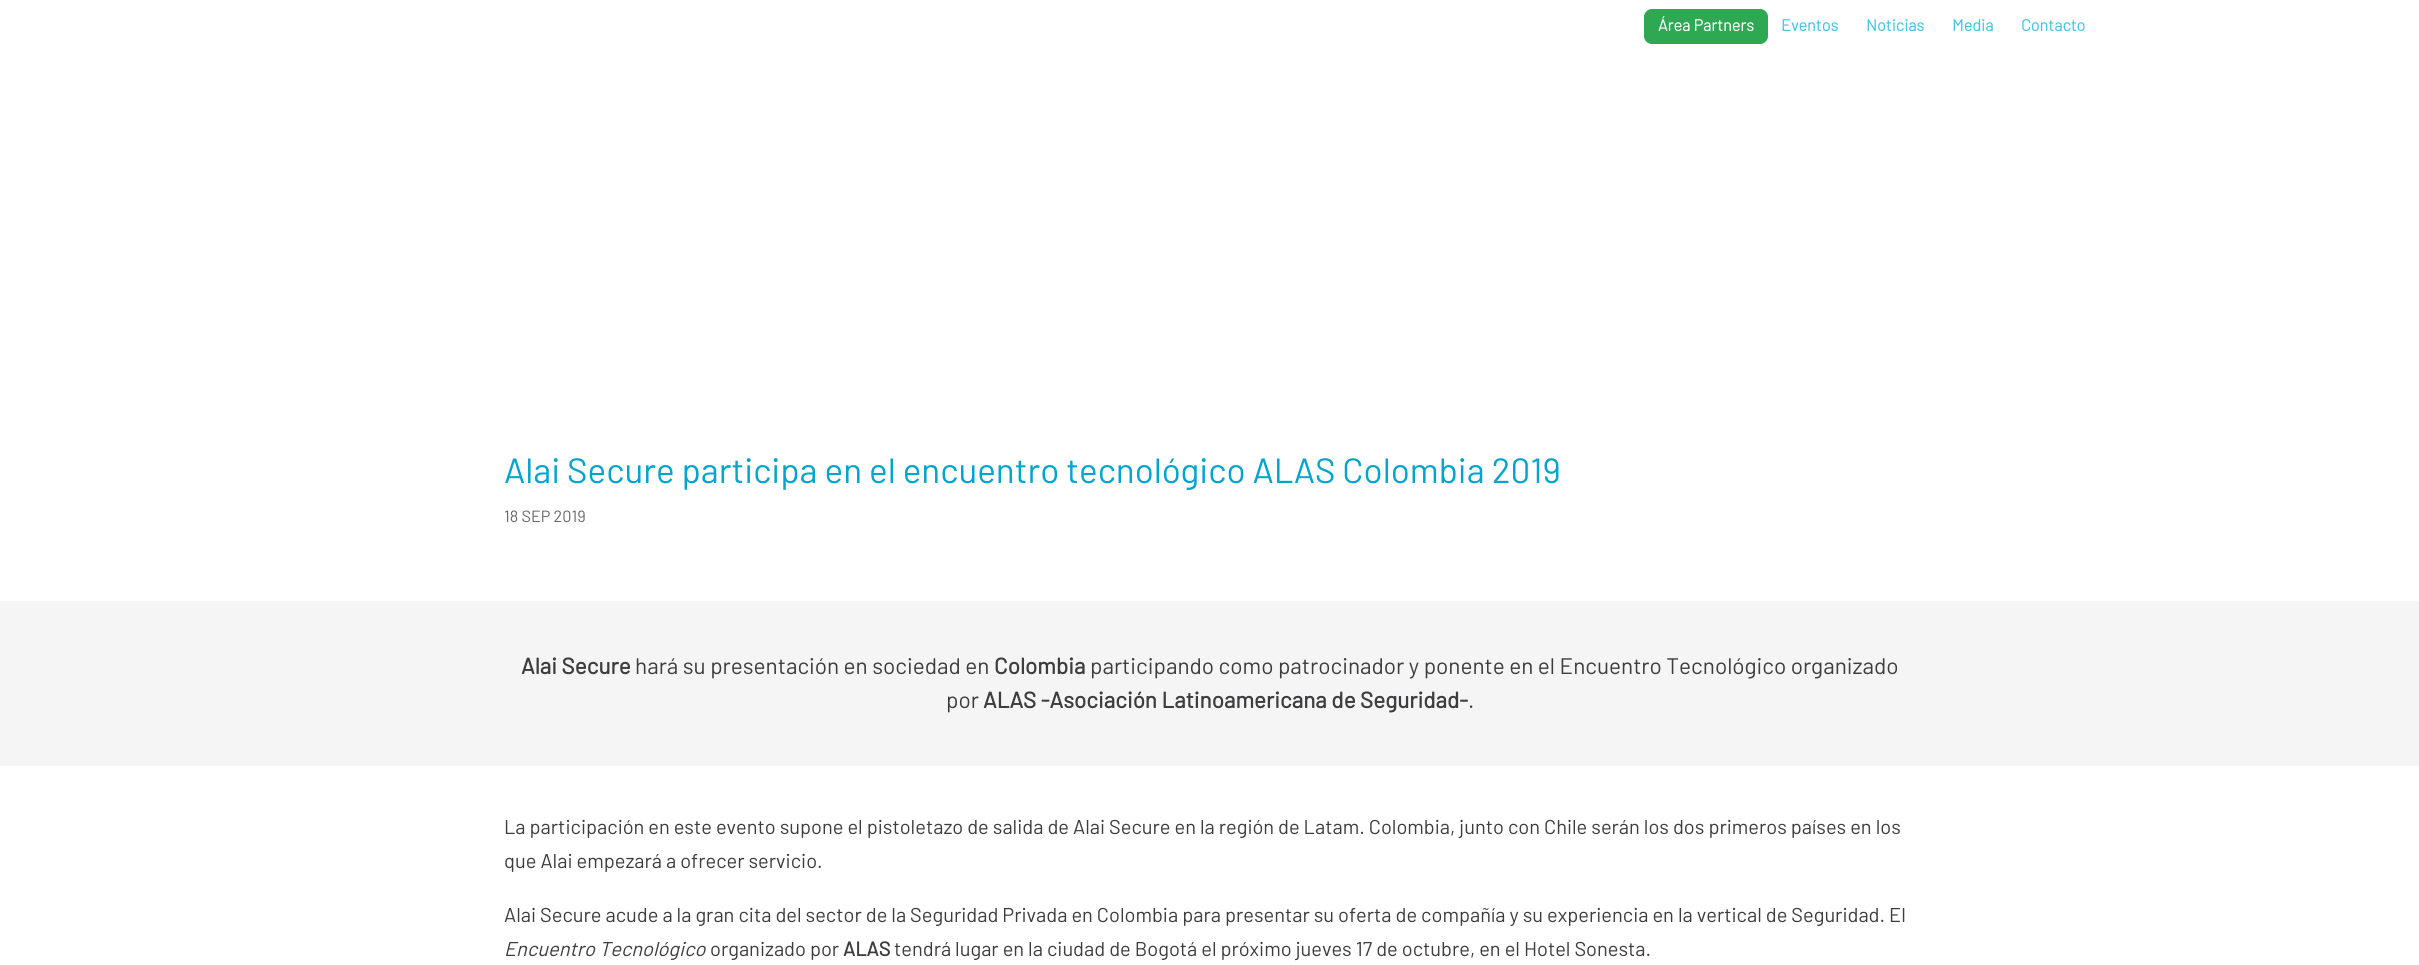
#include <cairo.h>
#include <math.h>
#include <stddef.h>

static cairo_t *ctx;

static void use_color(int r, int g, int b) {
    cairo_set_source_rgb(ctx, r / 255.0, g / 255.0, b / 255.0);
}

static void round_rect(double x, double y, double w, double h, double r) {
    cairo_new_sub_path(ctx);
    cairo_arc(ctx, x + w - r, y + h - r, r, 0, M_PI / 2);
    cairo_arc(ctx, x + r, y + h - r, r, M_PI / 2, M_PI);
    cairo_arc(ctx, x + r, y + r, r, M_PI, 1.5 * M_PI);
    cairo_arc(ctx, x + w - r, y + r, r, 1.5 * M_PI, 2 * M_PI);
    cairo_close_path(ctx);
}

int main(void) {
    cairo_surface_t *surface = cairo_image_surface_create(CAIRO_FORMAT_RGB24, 2419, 965);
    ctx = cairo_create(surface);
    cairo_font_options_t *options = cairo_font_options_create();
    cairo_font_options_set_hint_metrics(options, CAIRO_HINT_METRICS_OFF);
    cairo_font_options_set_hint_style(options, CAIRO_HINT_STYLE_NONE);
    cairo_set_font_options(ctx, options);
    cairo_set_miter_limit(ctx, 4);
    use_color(255, 255, 255);
    cairo_paint(ctx);
    use_color(46, 168, 82);
    round_rect(1644.5, 9.5, 123, 34, 7.5);
    cairo_fill_preserve(ctx);
    cairo_set_line_width(ctx, 1);
    cairo_stroke(ctx);
    cairo_select_font_face(ctx, "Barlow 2", CAIRO_FONT_SLANT_NORMAL, CAIRO_FONT_WEIGHT_BOLD);
    cairo_set_font_size(ctx, 16.25);
    use_color(255, 255, 255);
    cairo_move_to(ctx, 1658, 31);
    cairo_show_text(ctx, "Área Partners");
    use_color(69, 198, 230);
    cairo_move_to(ctx, 1781, 31);
    cairo_show_text(ctx, "Eventos");
    cairo_move_to(ctx, 1866, 31);
    cairo_show_text(ctx, "Noticias");
    cairo_move_to(ctx, 1952, 31);
    cairo_show_text(ctx, "Media");
    cairo_move_to(ctx, 2021, 31);
    cairo_show_text(ctx, "Contacto");
    cairo_select_font_face(ctx, "Barlow", CAIRO_FONT_SLANT_NORMAL, CAIRO_FONT_WEIGHT_NORMAL);
    cairo_set_font_size(ctx, 35);
    use_color(0, 164, 205);
    cairo_move_to(ctx, 504, 483);
    cairo_show_text(ctx, "Alai Secure participa en el encuentro tecnológico ALAS Colombia 2019");
    cairo_set_font_size(ctx, 16.25);
    use_color(102, 102, 102);
    cairo_move_to(ctx, 504, 522);
    cairo_show_text(ctx, "18 SEP 2019");
    use_color(245, 245, 245);
    cairo_rectangle(ctx, 0, 601, 2419, 165);
    cairo_fill(ctx);
    cairo_select_font_face(ctx, "Barlow", CAIRO_FONT_SLANT_NORMAL, CAIRO_FONT_WEIGHT_BOLD);
    cairo_set_font_size(ctx, 22.5);
    use_color(61, 61, 63);
    cairo_move_to(ctx, 521, 674);
    cairo_show_text(ctx, "Alai Secure");
    cairo_select_font_face(ctx, "Barlow", CAIRO_FONT_SLANT_NORMAL, CAIRO_FONT_WEIGHT_NORMAL);
    cairo_move_to(ctx, 635, 674);
    cairo_show_text(ctx, "hará su presentación en sociedad en");
    cairo_select_font_face(ctx, "Barlow", CAIRO_FONT_SLANT_NORMAL, CAIRO_FONT_WEIGHT_BOLD);
    cairo_move_to(ctx, 994, 674);
    cairo_show_text(ctx, "Colombia");
    cairo_select_font_face(ctx, "Barlow", CAIRO_FONT_SLANT_NORMAL, CAIRO_FONT_WEIGHT_NORMAL);
    cairo_move_to(ctx, 1090, 674);
    cairo_show_text(ctx, "participando como patrocinador y ponente en el Encuentro Tecnológico organizado");
    cairo_move_to(ctx, 946, 708);
    cairo_show_text(ctx, "por");
    cairo_select_font_face(ctx, "Barlow", CAIRO_FONT_SLANT_NORMAL, CAIRO_FONT_WEIGHT_BOLD);
    cairo_move_to(ctx, 983, 708);
    cairo_show_text(ctx, "ALAS -Asociación Latinoamericana de Seguridad-");
    cairo_select_font_face(ctx, "Barlow", CAIRO_FONT_SLANT_NORMAL, CAIRO_FONT_WEIGHT_NORMAL);
    cairo_move_to(ctx, 1468, 708);
    cairo_show_text(ctx, ".");
    cairo_set_font_size(ctx, 20);
    cairo_move_to(ctx, 504, 834);
    cairo_show_text(ctx, "La participación en este evento supone el pistoletazo de salida de Alai Secure en la región de Latam. Colombia, junto con Chile serán los dos primeros países en los");
    cairo_move_to(ctx, 504, 868);
    cairo_show_text(ctx, "que Alai empezará a ofrecer servicio.");
    cairo_move_to(ctx, 504, 922);
    cairo_show_text(ctx, "Alai Secure acude a la gran cita del sector de la Seguridad Privada en Colombia para presentar su oferta de compañía y su experiencia en la vertical de Seguridad. El");
    cairo_select_font_face(ctx, "Barlow", CAIRO_FONT_SLANT_ITALIC, CAIRO_FONT_WEIGHT_NORMAL);
    cairo_move_to(ctx, 504, 956);
    cairo_show_text(ctx, "Encuentro Tecnológico");
    cairo_select_font_face(ctx, "Barlow", CAIRO_FONT_SLANT_NORMAL, CAIRO_FONT_WEIGHT_NORMAL);
    cairo_move_to(ctx, 710, 956);
    cairo_show_text(ctx, "organizado por");
    cairo_select_font_face(ctx, "Barlow", CAIRO_FONT_SLANT_NORMAL, CAIRO_FONT_WEIGHT_BOLD);
    cairo_move_to(ctx, 843, 956);
    cairo_show_text(ctx, "ALAS");
    cairo_select_font_face(ctx, "Barlow", CAIRO_FONT_SLANT_NORMAL, CAIRO_FONT_WEIGHT_NORMAL);
    cairo_move_to(ctx, 894, 956);
    cairo_show_text(ctx, "tendrá lugar en la ciudad de Bogotá el próximo jueves 17 de octubre, en el Hotel Sonesta.");
    cairo_surface_write_to_png(surface, "result.png");
    cairo_font_options_destroy(options);
    cairo_destroy(ctx);
    cairo_surface_destroy(surface);
    return 0;
}
